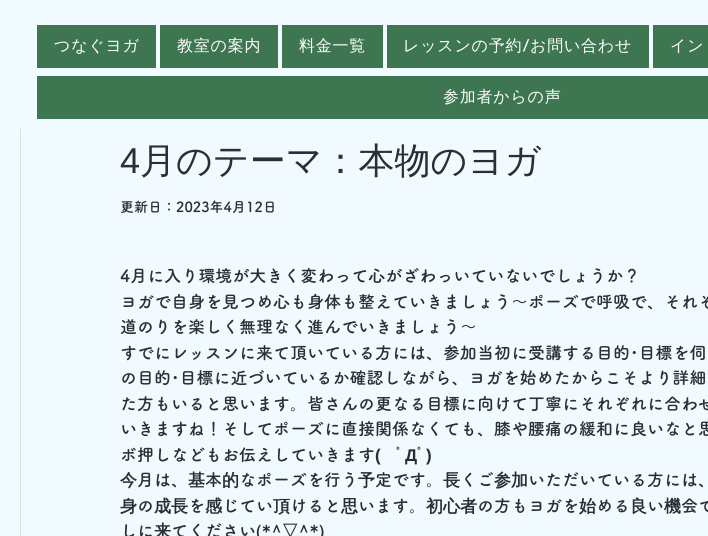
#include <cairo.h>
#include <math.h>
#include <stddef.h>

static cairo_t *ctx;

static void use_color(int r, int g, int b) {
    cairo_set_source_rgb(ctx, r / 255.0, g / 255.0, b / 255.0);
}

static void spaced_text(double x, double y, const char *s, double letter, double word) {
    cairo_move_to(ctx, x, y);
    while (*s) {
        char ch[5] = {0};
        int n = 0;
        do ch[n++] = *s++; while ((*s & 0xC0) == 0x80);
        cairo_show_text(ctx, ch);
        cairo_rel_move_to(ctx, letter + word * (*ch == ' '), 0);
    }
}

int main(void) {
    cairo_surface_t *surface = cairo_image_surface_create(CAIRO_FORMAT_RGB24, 708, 536);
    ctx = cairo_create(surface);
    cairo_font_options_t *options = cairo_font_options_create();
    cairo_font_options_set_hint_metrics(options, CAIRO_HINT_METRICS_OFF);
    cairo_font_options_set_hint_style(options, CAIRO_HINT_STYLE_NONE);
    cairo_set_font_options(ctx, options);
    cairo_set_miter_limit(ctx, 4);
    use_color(240, 250, 255);
    cairo_paint(ctx);
    cairo_rectangle(ctx, 20.5, 49.5, 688, 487);
    use_color(212, 228, 236);
    cairo_set_line_width(ctx, 1);
    cairo_stroke(ctx);
    use_color(240, 250, 255);
    cairo_rectangle(ctx, 20, 49, 688, 80);
    cairo_fill(ctx);
    use_color(63, 118, 82);
    cairo_rectangle(ctx, 37, 25, 119, 43);
    cairo_fill(ctx);
    cairo_select_font_face(ctx, "WenQuanYi Zen Hei Medium", CAIRO_FONT_SLANT_NORMAL, CAIRO_FONT_WEIGHT_NORMAL);
    cairo_set_font_size(ctx, 16);
    use_color(255, 255, 255);
    spaced_text(54, 51, "つなぐヨガ", 0.75, 0);
    use_color(63, 118, 82);
    cairo_rectangle(ctx, 160, 25, 118, 43);
    cairo_fill(ctx);
    use_color(255, 255, 255);
    spaced_text(177, 51, "教室の案内", 0.75, 0);
    use_color(63, 118, 82);
    cairo_rectangle(ctx, 282, 25, 101, 43);
    cairo_fill(ctx);
    use_color(255, 255, 255);
    spaced_text(299, 51, "料金一覧", 0.75, 0);
    use_color(63, 118, 82);
    cairo_rectangle(ctx, 387, 25, 262, 43);
    cairo_fill(ctx);
    use_color(255, 255, 255);
    spaced_text(403, 51, "レッスンの予約", 0.75, 0);
    cairo_select_font_face(ctx, "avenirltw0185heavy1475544 Black", CAIRO_FONT_SLANT_NORMAL, CAIRO_FONT_WEIGHT_NORMAL);
    spaced_text(523, 51, "/", 0.75, 0);
    cairo_select_font_face(ctx, "WenQuanYi Zen Hei Medium", CAIRO_FONT_SLANT_NORMAL, CAIRO_FONT_WEIGHT_NORMAL);
    spaced_text(530, 51, "お問い合わせ", 0.75, 0);
    use_color(63, 118, 82);
    cairo_rectangle(ctx, 653, 25, 55, 43);
    cairo_fill(ctx);
    use_color(255, 255, 255);
    spaced_text(670, 51, "イン", 0.75, 0);
    use_color(63, 118, 82);
    cairo_rectangle(ctx, 37, 76, 671, 43);
    cairo_fill(ctx);
    use_color(255, 255, 255);
    spaced_text(443, 102, "参加者からの声", 0.75, 0);
    cairo_select_font_face(ctx, "Liberation Sans", CAIRO_FONT_SLANT_NORMAL, CAIRO_FONT_WEIGHT_NORMAL);
    cairo_set_font_size(ctx, 36);
    use_color(41, 47, 51);
    cairo_move_to(ctx, 120, 173);
    cairo_show_text(ctx, "4");
    cairo_select_font_face(ctx, "WenQuanYi Zen Hei Medium", CAIRO_FONT_SLANT_NORMAL, CAIRO_FONT_WEIGHT_NORMAL);
    cairo_move_to(ctx, 140, 173);
    cairo_show_text(ctx, "月のテーマ：本物のヨガ");
    cairo_select_font_face(ctx, "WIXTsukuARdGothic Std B", CAIRO_FONT_SLANT_NORMAL, CAIRO_FONT_WEIGHT_BOLD);
    cairo_set_font_size(ctx, 14);
    cairo_move_to(ctx, 120, 212);
    cairo_show_text(ctx, "更新日：2023年4月12日");
    cairo_set_font_size(ctx, 17);
    cairo_move_to(ctx, 120, 282);
    cairo_show_text(ctx, "4月に入り環境が大きく変わって心がざわっいていないでしょうか？");
    cairo_move_to(ctx, 120, 308);
    cairo_show_text(ctx, "ヨガで自身を見つめ心も身体も整えていきましょう～ポーズで呼吸で、それぞ");
    cairo_move_to(ctx, 120, 333);
    cairo_show_text(ctx, "道のりを楽しく無理なく進んでいきましょう～");
    cairo_move_to(ctx, 120, 359);
    cairo_show_text(ctx, "すでにレッスンに来て頂いている方には、参加当初に受講する目的･目標を伺");
    cairo_move_to(ctx, 120, 384);
    cairo_show_text(ctx, "の目的･目標に近づいているか確認しながら、ヨガを始めたからこそより詳細");
    cairo_move_to(ctx, 120, 410);
    cairo_show_text(ctx, "た方もいると思います。皆さんの更なる目標に向けて丁寧にそれぞれに合わせ");
    cairo_move_to(ctx, 120, 435);
    cairo_show_text(ctx, "いきますね！そしてポーズに直接関係なくても、膝や腰痛の緩和に良いなと思");
    cairo_move_to(ctx, 120, 461);
    cairo_show_text(ctx, "ボ押しなどもお伝えしていきます");
    cairo_select_font_face(ctx, "Liberation Sans", CAIRO_FONT_SLANT_NORMAL, CAIRO_FONT_WEIGHT_BOLD);
    cairo_move_to(ctx, 375, 461);
    cairo_show_text(ctx, "(");
    cairo_select_font_face(ctx, "WIXTsukuARdGothic Std B", CAIRO_FONT_SLANT_NORMAL, CAIRO_FONT_WEIGHT_BOLD);
    cairo_move_to(ctx, 396, 461);
    cairo_show_text(ctx, "ﾟ");
    cairo_select_font_face(ctx, "Liberation Sans", CAIRO_FONT_SLANT_NORMAL, CAIRO_FONT_WEIGHT_BOLD);
    cairo_move_to(ctx, 405, 461);
    cairo_show_text(ctx, "Д");
    cairo_select_font_face(ctx, "WIXTsukuARdGothic Std B", CAIRO_FONT_SLANT_NORMAL, CAIRO_FONT_WEIGHT_BOLD);
    cairo_move_to(ctx, 417, 461);
    cairo_show_text(ctx, "ﾟ");
    cairo_select_font_face(ctx, "Liberation Sans", CAIRO_FONT_SLANT_NORMAL, CAIRO_FONT_WEIGHT_BOLD);
    cairo_move_to(ctx, 426, 461);
    cairo_show_text(ctx, ")");
    cairo_select_font_face(ctx, "WenQuanYi Zen Hei", CAIRO_FONT_SLANT_NORMAL, CAIRO_FONT_WEIGHT_BOLD);
    cairo_move_to(ctx, 120, 486);
    cairo_show_text(ctx, "今");
    cairo_select_font_face(ctx, "WIXTsukuARdGothic Std B", CAIRO_FONT_SLANT_NORMAL, CAIRO_FONT_WEIGHT_BOLD);
    cairo_move_to(ctx, 137, 486);
    cairo_show_text(ctx, "月は、");
    cairo_select_font_face(ctx, "WenQuanYi Zen Hei", CAIRO_FONT_SLANT_NORMAL, CAIRO_FONT_WEIGHT_BOLD);
    cairo_move_to(ctx, 188, 486);
    cairo_show_text(ctx, "基");
    cairo_select_font_face(ctx, "WIXTsukuARdGothic Std B", CAIRO_FONT_SLANT_NORMAL, CAIRO_FONT_WEIGHT_BOLD);
    cairo_move_to(ctx, 205, 486);
    cairo_show_text(ctx, "本");
    cairo_select_font_face(ctx, "WenQuanYi Zen Hei", CAIRO_FONT_SLANT_NORMAL, CAIRO_FONT_WEIGHT_BOLD);
    cairo_move_to(ctx, 222, 486);
    cairo_show_text(ctx, "的");
    cairo_select_font_face(ctx, "WIXTsukuARdGothic Std B", CAIRO_FONT_SLANT_NORMAL, CAIRO_FONT_WEIGHT_BOLD);
    cairo_move_to(ctx, 239, 486);
    cairo_show_text(ctx, "なポーズを行う");
    cairo_select_font_face(ctx, "WenQuanYi Zen Hei", CAIRO_FONT_SLANT_NORMAL, CAIRO_FONT_WEIGHT_BOLD);
    cairo_move_to(ctx, 358, 486);
    cairo_show_text(ctx, "予");
    cairo_select_font_face(ctx, "WIXTsukuARdGothic Std B", CAIRO_FONT_SLANT_NORMAL, CAIRO_FONT_WEIGHT_BOLD);
    cairo_move_to(ctx, 375, 486);
    cairo_show_text(ctx, "定です。");
    cairo_select_font_face(ctx, "WenQuanYi Zen Hei", CAIRO_FONT_SLANT_NORMAL, CAIRO_FONT_WEIGHT_BOLD);
    cairo_move_to(ctx, 443, 486);
    cairo_show_text(ctx, "長");
    cairo_select_font_face(ctx, "WIXTsukuARdGothic Std B", CAIRO_FONT_SLANT_NORMAL, CAIRO_FONT_WEIGHT_BOLD);
    cairo_move_to(ctx, 460, 486);
    cairo_show_text(ctx, "くご");
    cairo_select_font_face(ctx, "WenQuanYi Zen Hei", CAIRO_FONT_SLANT_NORMAL, CAIRO_FONT_WEIGHT_BOLD);
    cairo_move_to(ctx, 494, 486);
    cairo_show_text(ctx, "参加");
    cairo_select_font_face(ctx, "WIXTsukuARdGothic Std B", CAIRO_FONT_SLANT_NORMAL, CAIRO_FONT_WEIGHT_BOLD);
    cairo_move_to(ctx, 528, 486);
    cairo_show_text(ctx, "いただいている方には、");
    cairo_select_font_face(ctx, "WenQuanYi Zen Hei", CAIRO_FONT_SLANT_NORMAL, CAIRO_FONT_WEIGHT_BOLD);
    cairo_move_to(ctx, 120, 512);
    cairo_show_text(ctx, "身");
    cairo_select_font_face(ctx, "WIXTsukuARdGothic Std B", CAIRO_FONT_SLANT_NORMAL, CAIRO_FONT_WEIGHT_BOLD);
    cairo_move_to(ctx, 137, 512);
    cairo_show_text(ctx, "の");
    cairo_select_font_face(ctx, "WenQuanYi Zen Hei", CAIRO_FONT_SLANT_NORMAL, CAIRO_FONT_WEIGHT_BOLD);
    cairo_move_to(ctx, 154, 512);
    cairo_show_text(ctx, "成長");
    cairo_select_font_face(ctx, "WIXTsukuARdGothic Std B", CAIRO_FONT_SLANT_NORMAL, CAIRO_FONT_WEIGHT_BOLD);
    cairo_move_to(ctx, 188, 512);
    cairo_show_text(ctx, "を");
    cairo_select_font_face(ctx, "WenQuanYi Zen Hei", CAIRO_FONT_SLANT_NORMAL, CAIRO_FONT_WEIGHT_BOLD);
    cairo_move_to(ctx, 205, 512);
    cairo_show_text(ctx, "感");
    cairo_select_font_face(ctx, "WIXTsukuARdGothic Std B", CAIRO_FONT_SLANT_NORMAL, CAIRO_FONT_WEIGHT_BOLD);
    cairo_move_to(ctx, 222, 512);
    cairo_show_text(ctx, "じてい");
    cairo_select_font_face(ctx, "WenQuanYi Zen Hei", CAIRO_FONT_SLANT_NORMAL, CAIRO_FONT_WEIGHT_BOLD);
    cairo_move_to(ctx, 273, 512);
    cairo_show_text(ctx, "頂");
    cairo_select_font_face(ctx, "WIXTsukuARdGothic Std B", CAIRO_FONT_SLANT_NORMAL, CAIRO_FONT_WEIGHT_BOLD);
    cairo_move_to(ctx, 290, 512);
    cairo_show_text(ctx, "けると");
    cairo_select_font_face(ctx, "WenQuanYi Zen Hei", CAIRO_FONT_SLANT_NORMAL, CAIRO_FONT_WEIGHT_BOLD);
    cairo_move_to(ctx, 341, 512);
    cairo_show_text(ctx, "思");
    cairo_select_font_face(ctx, "WIXTsukuARdGothic Std B", CAIRO_FONT_SLANT_NORMAL, CAIRO_FONT_WEIGHT_BOLD);
    cairo_move_to(ctx, 358, 512);
    cairo_show_text(ctx, "います。");
    cairo_select_font_face(ctx, "WenQuanYi Zen Hei", CAIRO_FONT_SLANT_NORMAL, CAIRO_FONT_WEIGHT_BOLD);
    cairo_move_to(ctx, 426, 512);
    cairo_show_text(ctx, "初心者");
    cairo_select_font_face(ctx, "WIXTsukuARdGothic Std B", CAIRO_FONT_SLANT_NORMAL, CAIRO_FONT_WEIGHT_BOLD);
    cairo_move_to(ctx, 477, 512);
    cairo_show_text(ctx, "の方もヨガを");
    cairo_select_font_face(ctx, "WenQuanYi Zen Hei", CAIRO_FONT_SLANT_NORMAL, CAIRO_FONT_WEIGHT_BOLD);
    cairo_move_to(ctx, 579, 512);
    cairo_show_text(ctx, "始");
    cairo_select_font_face(ctx, "WIXTsukuARdGothic Std B", CAIRO_FONT_SLANT_NORMAL, CAIRO_FONT_WEIGHT_BOLD);
    cairo_move_to(ctx, 596, 512);
    cairo_show_text(ctx, "める");
    cairo_select_font_face(ctx, "WenQuanYi Zen Hei", CAIRO_FONT_SLANT_NORMAL, CAIRO_FONT_WEIGHT_BOLD);
    cairo_move_to(ctx, 630, 512);
    cairo_show_text(ctx, "良");
    cairo_select_font_face(ctx, "WIXTsukuARdGothic Std B", CAIRO_FONT_SLANT_NORMAL, CAIRO_FONT_WEIGHT_BOLD);
    cairo_move_to(ctx, 647, 512);
    cairo_show_text(ctx, "い");
    cairo_select_font_face(ctx, "WenQuanYi Zen Hei", CAIRO_FONT_SLANT_NORMAL, CAIRO_FONT_WEIGHT_BOLD);
    cairo_move_to(ctx, 664, 512);
    cairo_show_text(ctx, "機");
    cairo_select_font_face(ctx, "WIXTsukuARdGothic Std B", CAIRO_FONT_SLANT_NORMAL, CAIRO_FONT_WEIGHT_BOLD);
    cairo_move_to(ctx, 681, 512);
    cairo_show_text(ctx, "会で");
    cairo_move_to(ctx, 120, 537);
    cairo_show_text(ctx, "しに");
    cairo_select_font_face(ctx, "WenQuanYi Zen Hei", CAIRO_FONT_SLANT_NORMAL, CAIRO_FONT_WEIGHT_BOLD);
    cairo_move_to(ctx, 154, 537);
    cairo_show_text(ctx, "来");
    cairo_select_font_face(ctx, "WIXTsukuARdGothic Std B", CAIRO_FONT_SLANT_NORMAL, CAIRO_FONT_WEIGHT_BOLD);
    cairo_move_to(ctx, 171, 537);
    cairo_show_text(ctx, "てください");
    cairo_select_font_face(ctx, "WenQuanYi Zen Hei", CAIRO_FONT_SLANT_NORMAL, CAIRO_FONT_WEIGHT_BOLD);
    cairo_move_to(ctx, 256, 537);
    cairo_show_text(ctx, "(*^▽^*)");
    cairo_surface_write_to_png(surface, "result.png");
    cairo_font_options_destroy(options);
    cairo_destroy(ctx);
    cairo_surface_destroy(surface);
    return 0;
}
